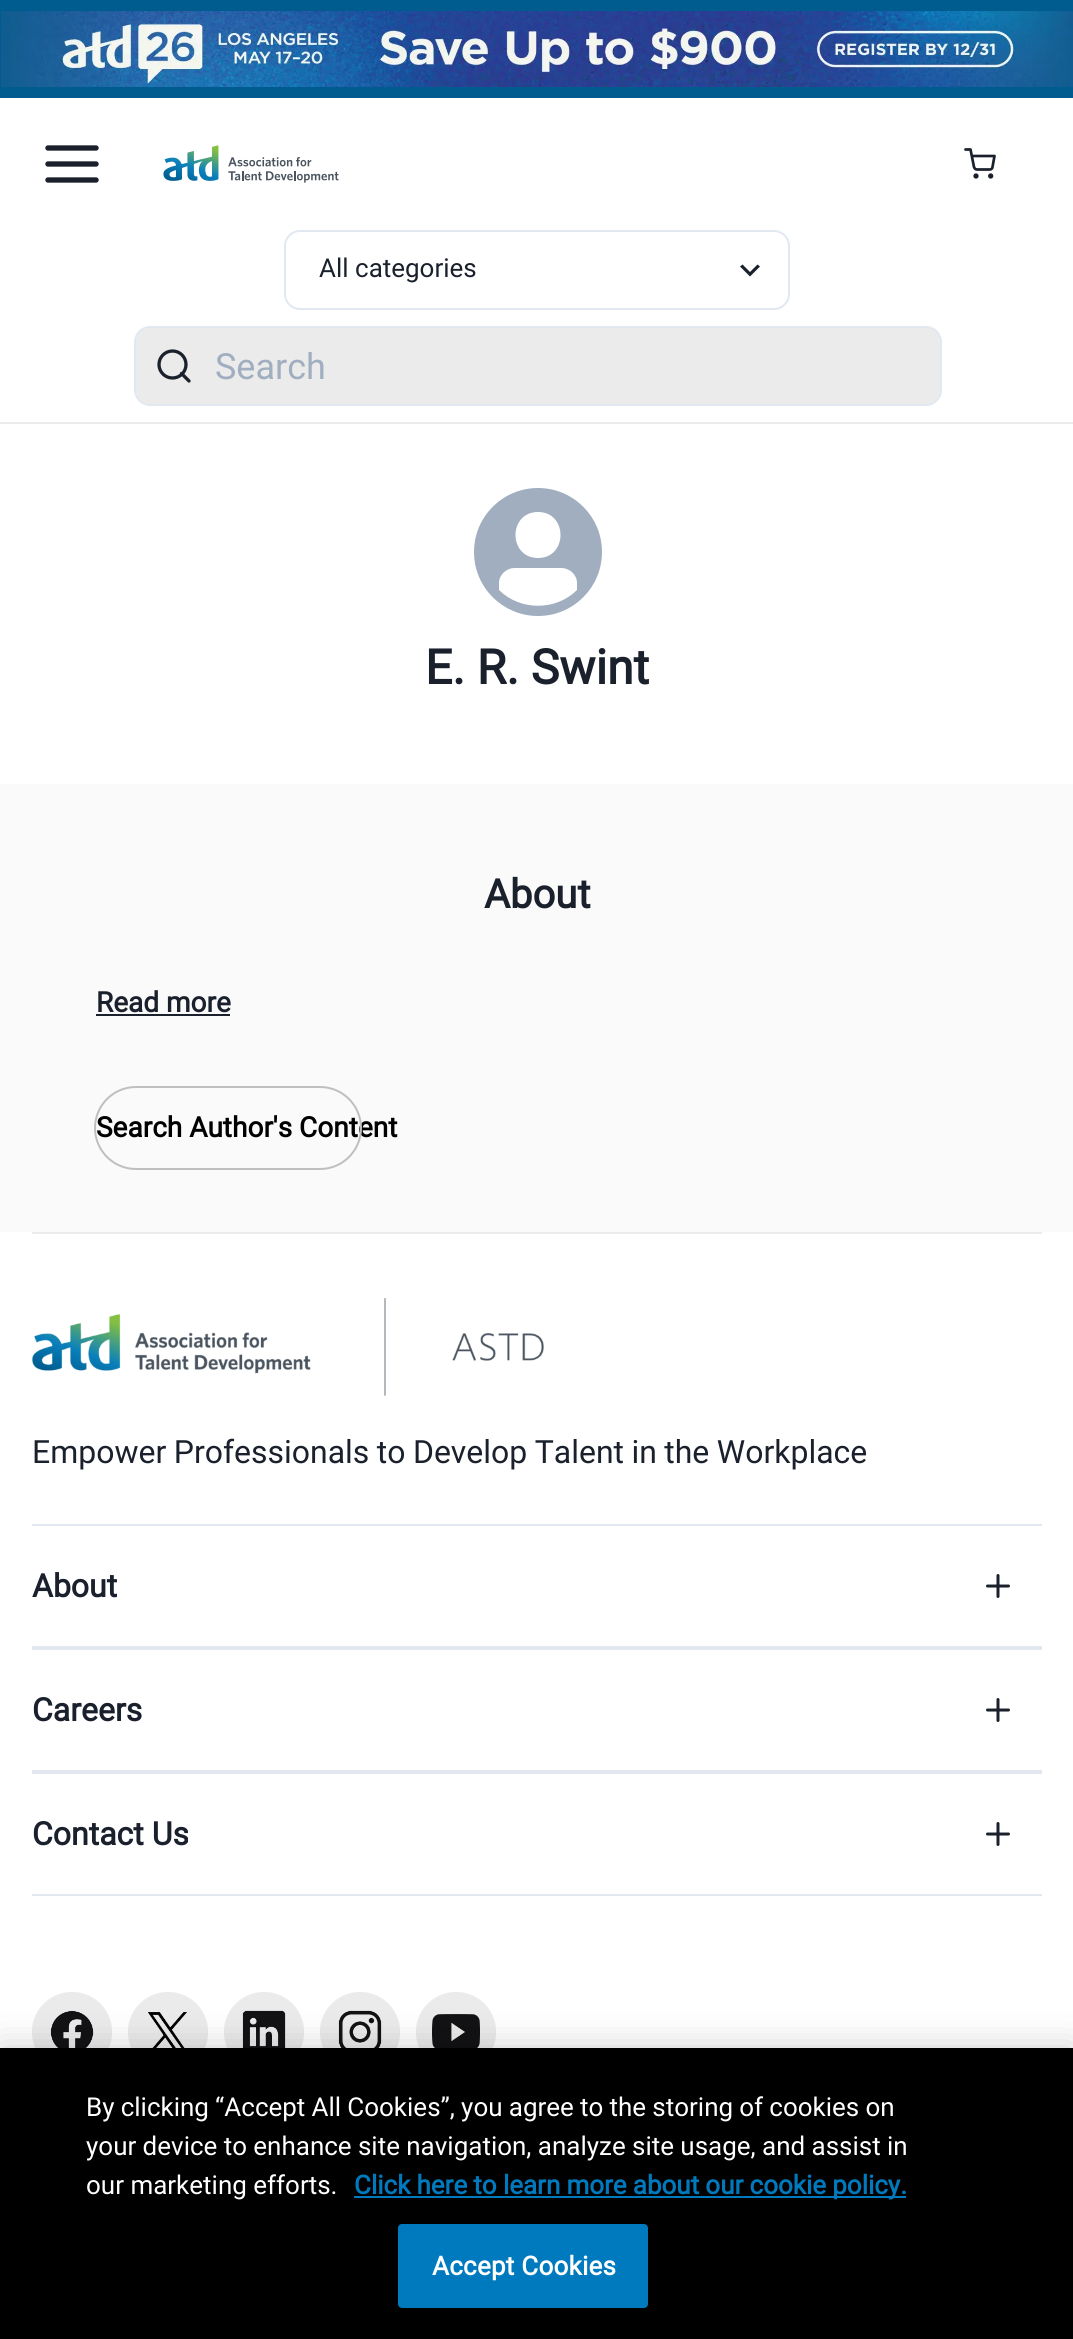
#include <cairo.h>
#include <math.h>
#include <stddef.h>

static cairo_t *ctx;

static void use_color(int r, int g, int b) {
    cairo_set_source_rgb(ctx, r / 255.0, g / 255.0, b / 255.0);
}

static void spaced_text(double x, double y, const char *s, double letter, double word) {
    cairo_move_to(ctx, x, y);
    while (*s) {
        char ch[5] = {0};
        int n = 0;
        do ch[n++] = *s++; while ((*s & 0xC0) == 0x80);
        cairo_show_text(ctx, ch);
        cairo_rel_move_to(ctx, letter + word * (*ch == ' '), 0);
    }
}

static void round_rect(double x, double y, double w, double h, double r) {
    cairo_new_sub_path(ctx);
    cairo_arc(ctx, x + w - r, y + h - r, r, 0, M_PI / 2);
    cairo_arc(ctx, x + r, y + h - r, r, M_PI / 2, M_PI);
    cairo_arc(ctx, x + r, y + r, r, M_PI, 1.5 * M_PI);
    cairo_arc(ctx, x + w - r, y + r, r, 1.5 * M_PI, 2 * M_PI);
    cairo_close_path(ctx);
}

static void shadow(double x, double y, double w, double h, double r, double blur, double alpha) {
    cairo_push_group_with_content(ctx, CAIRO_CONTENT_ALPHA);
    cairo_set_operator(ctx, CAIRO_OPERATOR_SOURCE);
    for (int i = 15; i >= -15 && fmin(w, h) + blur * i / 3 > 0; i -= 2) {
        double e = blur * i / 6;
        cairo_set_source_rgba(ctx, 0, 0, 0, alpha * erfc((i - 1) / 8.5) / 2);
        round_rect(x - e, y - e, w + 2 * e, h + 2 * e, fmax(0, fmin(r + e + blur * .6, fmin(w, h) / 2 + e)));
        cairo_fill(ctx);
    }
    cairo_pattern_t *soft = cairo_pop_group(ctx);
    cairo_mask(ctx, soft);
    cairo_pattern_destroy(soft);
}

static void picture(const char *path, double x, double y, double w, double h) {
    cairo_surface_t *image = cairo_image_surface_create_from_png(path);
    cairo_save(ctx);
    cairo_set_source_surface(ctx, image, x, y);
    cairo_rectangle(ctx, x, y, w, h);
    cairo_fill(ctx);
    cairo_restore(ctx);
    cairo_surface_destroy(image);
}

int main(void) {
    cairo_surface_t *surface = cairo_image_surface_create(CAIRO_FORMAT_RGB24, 1073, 2339);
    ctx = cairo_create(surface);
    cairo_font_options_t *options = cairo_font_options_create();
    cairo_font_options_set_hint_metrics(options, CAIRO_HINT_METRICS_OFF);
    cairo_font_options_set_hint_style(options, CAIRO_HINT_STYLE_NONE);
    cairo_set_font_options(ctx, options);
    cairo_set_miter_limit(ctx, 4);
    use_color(255, 255, 255);
    cairo_paint(ctx);
    use_color(0, 91, 142);
    cairo_rectangle(ctx, 0, 0, 1073, 98);
    cairo_fill(ctx);
    picture("img1.png", 1, 11, 1072, 76);
    use_color(235, 235, 235);
    cairo_rectangle(ctx, 0, 422, 1073, 2);
    cairo_fill(ctx);
    picture("img2.png", 45, 145, 54, 38);
    picture("img3.png", 163, 145, 176, 38);
    cairo_arc(ctx, 976, 176, 1.3, 0, 2 * M_PI);
    use_color(26, 32, 44);
    cairo_set_line_width(ctx, 2.7);
    cairo_stroke(ctx);
    cairo_arc(ctx, 990.7, 176, 1.3, 0, 2 * M_PI);
    cairo_stroke(ctx);
    cairo_new_path(ctx);
    cairo_move_to(ctx, 965.5, 149.5);
    cairo_line_to(ctx, 970.5, 149.5);
    cairo_line_to(ctx, 974, 167);
    cairo_curve_to(ctx, 974.5, 168.5, 975.5, 169.5, 977, 169.5);
    cairo_line_to(ctx, 990, 169.5);
    cairo_curve_to(ctx, 991, 169.5, 992.5, 168.5, 992.5, 167);
    cairo_line_to(ctx, 994.5, 156);
    cairo_line_to(ctx, 972, 156);
    cairo_set_line_cap(ctx, CAIRO_LINE_CAP_ROUND);
    cairo_set_line_join(ctx, CAIRO_LINE_JOIN_ROUND);
    cairo_stroke(ctx);
    round_rect(285, 231, 504, 78, 15);
    use_color(226, 232, 240);
    cairo_set_line_width(ctx, 2);
    cairo_set_line_cap(ctx, CAIRO_LINE_CAP_BUTT);
    cairo_set_line_join(ctx, CAIRO_LINE_JOIN_MITER);
    cairo_stroke(ctx);
    cairo_select_font_face(ctx, "Roboto", CAIRO_FONT_SLANT_NORMAL, CAIRO_FONT_WEIGHT_NORMAL);
    cairo_set_font_size(ctx, 26);
    use_color(26, 32, 44);
    cairo_move_to(ctx, 319, 277);
    cairo_show_text(ctx, "All categories");
    cairo_new_path(ctx);
    cairo_move_to(ctx, 757.5, 264.5);
    cairo_line_to(ctx, 750, 272);
    cairo_line_to(ctx, 742.5, 264.5);
    cairo_line_to(ctx, 740, 266.5);
    cairo_line_to(ctx, 750, 276.5);
    cairo_line_to(ctx, 760, 266.5);
    cairo_close_path(ctx);
    cairo_fill(ctx);
    use_color(235, 235, 235);
    round_rect(135, 327, 806, 78, 15);
    cairo_fill_preserve(ctx);
    use_color(226, 232, 240);
    cairo_stroke(ctx);
    cairo_arc(ctx, 172.5, 364.5, 13.5, 0, 2 * M_PI);
    use_color(26, 32, 44);
    cairo_set_line_width(ctx, 3.3);
    cairo_stroke(ctx);
    cairo_new_path(ctx);
    cairo_move_to(ctx, 189, 381);
    cairo_line_to(ctx, 181.5, 373.5);
    cairo_set_line_cap(ctx, CAIRO_LINE_CAP_ROUND);
    cairo_set_line_join(ctx, CAIRO_LINE_JOIN_ROUND);
    cairo_stroke(ctx);
    cairo_set_font_size(ctx, 36);
    use_color(160, 174, 192);
    cairo_move_to(ctx, 215, 379);
    cairo_show_text(ctx, "Search");
    use_color(250, 250, 250);
    cairo_rectangle(ctx, 0, 784, 1073, 448);
    cairo_fill(ctx);
    use_color(160, 174, 192);
    cairo_arc(ctx, 538, 552, 64, 0, 2 * M_PI);
    cairo_fill(ctx);
    use_color(255, 255, 255);
    cairo_new_path(ctx);
    cairo_move_to(ctx, 577, 590);
    cairo_curve_to(ctx, 556, 611, 520, 611, 499, 590);
    cairo_line_to(ctx, 499, 583);
    cairo_curve_to(ctx, 499, 575, 506, 568, 515, 568);
    cairo_line_to(ctx, 561, 568);
    cairo_curve_to(ctx, 570, 568, 577, 575, 577, 583);
    cairo_close_path(ctx);
    cairo_fill(ctx);
    cairo_new_path(ctx);
    cairo_move_to(ctx, 538, 512);
    cairo_curve_to(ctx, 508, 512, 508, 558, 538, 558);
    cairo_curve_to(ctx, 568, 558, 568, 512, 538, 512);
    cairo_fill(ctx);
    cairo_select_font_face(ctx, "Roboto", CAIRO_FONT_SLANT_NORMAL, CAIRO_FONT_WEIGHT_BOLD);
    cairo_set_font_size(ctx, 48);
    use_color(26, 32, 44);
    cairo_move_to(ctx, 425, 684);
    cairo_show_text(ctx, "E. R. Swint");
    cairo_set_font_size(ctx, 40);
    cairo_move_to(ctx, 484, 908);
    cairo_show_text(ctx, "About");
    cairo_set_font_size(ctx, 28);
    cairo_move_to(ctx, 96, 1012);
    cairo_show_text(ctx, "Read more");
    cairo_rectangle(ctx, 96, 1014, 134, 2);
    cairo_fill(ctx);
    use_color(0, 0, 0);
    cairo_move_to(ctx, 96, 1137);
    cairo_show_text(ctx, "Search Author's Content");
    round_rect(95, 1087, 266, 82, 41);
    use_color(191, 191, 192);
    cairo_set_line_width(ctx, 2);
    cairo_set_line_cap(ctx, CAIRO_LINE_CAP_BUTT);
    cairo_set_line_join(ctx, CAIRO_LINE_JOIN_MITER);
    cairo_stroke(ctx);
    use_color(235, 235, 235);
    cairo_rectangle(ctx, 32, 1232, 1010, 2);
    cairo_fill(ctx);
    picture("img4.png", 32, 1298, 512, 98);
    cairo_select_font_face(ctx, "Roboto", CAIRO_FONT_SLANT_NORMAL, CAIRO_FONT_WEIGHT_NORMAL);
    cairo_set_font_size(ctx, 32);
    use_color(26, 32, 44);
    spaced_text(32, 1463, "Empower Professionals to Develop Talent in the Workplace", 0, -0.5);
    use_color(226, 232, 240);
    cairo_rectangle(ctx, 32, 1524, 1010, 2);
    cairo_fill(ctx);
    cairo_rectangle(ctx, 32, 1646, 1010, 4);
    cairo_fill(ctx);
    cairo_select_font_face(ctx, "Roboto", CAIRO_FONT_SLANT_NORMAL, CAIRO_FONT_WEIGHT_BOLD);
    use_color(26, 32, 44);
    cairo_move_to(ctx, 32, 1597);
    cairo_show_text(ctx, "About");
    picture("img5.png", 986, 1574, 24, 24);
    use_color(226, 232, 240);
    cairo_rectangle(ctx, 32, 1770, 1010, 4);
    cairo_fill(ctx);
    use_color(26, 32, 44);
    cairo_move_to(ctx, 32, 1721);
    cairo_show_text(ctx, "Careers");
    picture("img5.png", 986, 1698, 24, 24);
    use_color(226, 232, 240);
    cairo_rectangle(ctx, 32, 1894, 1010, 2);
    cairo_fill(ctx);
    use_color(26, 32, 44);
    cairo_move_to(ctx, 32, 1845);
    cairo_show_text(ctx, "Contact Us");
    picture("img5.png", 986, 1822, 24, 24);
    picture("img6.png", 32, 1992, 80, 56);
    picture("img7.png", 128, 1992, 80, 56);
    picture("img8.png", 224, 1992, 80, 56);
    picture("img9.png", 320, 1992, 80, 56);
    picture("img10.png", 416, 1992, 80, 56);
    use_color(0, 0, 0);
    shadow(0, 2048, 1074, 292, 0, 18, 0.2);
    use_color(0, 0, 0);
    cairo_rectangle(ctx, 0, 2048, 1073, 291);
    cairo_fill(ctx);
    cairo_select_font_face(ctx, "Roboto", CAIRO_FONT_SLANT_NORMAL, CAIRO_FONT_WEIGHT_NORMAL);
    cairo_set_font_size(ctx, 26);
    use_color(255, 255, 255);
    spaced_text(86, 2116, "By clicking “Accept All Cookies”, you agree to the storing of cookies on", 0, -0.25);
    spaced_text(86, 2155, "your device to enhance site navigation, analyze site usage, and assist in", 0, -0.1);
    cairo_move_to(ctx, 86, 2194);
    cairo_show_text(ctx, "our marketing efforts.");
    use_color(0, 122, 190);
    cairo_rectangle(ctx, 354, 2196, 552, 2);
    cairo_fill(ctx);
    cairo_select_font_face(ctx, "Roboto", CAIRO_FONT_SLANT_NORMAL, CAIRO_FONT_WEIGHT_BOLD);
    spaced_text(354, 2194, "Click here to learn more about our cookie policy.", 0, -0.25);
    round_rect(399, 2225, 248, 82, 3);
    cairo_fill_preserve(ctx);
    cairo_stroke(ctx);
    use_color(255, 255, 255);
    spaced_text(432, 2275, "Accept Cookies", 0.25, 0);
    cairo_surface_write_to_png(surface, "result.png");
    cairo_font_options_destroy(options);
    cairo_destroy(ctx);
    cairo_surface_destroy(surface);
    return 0;
}
